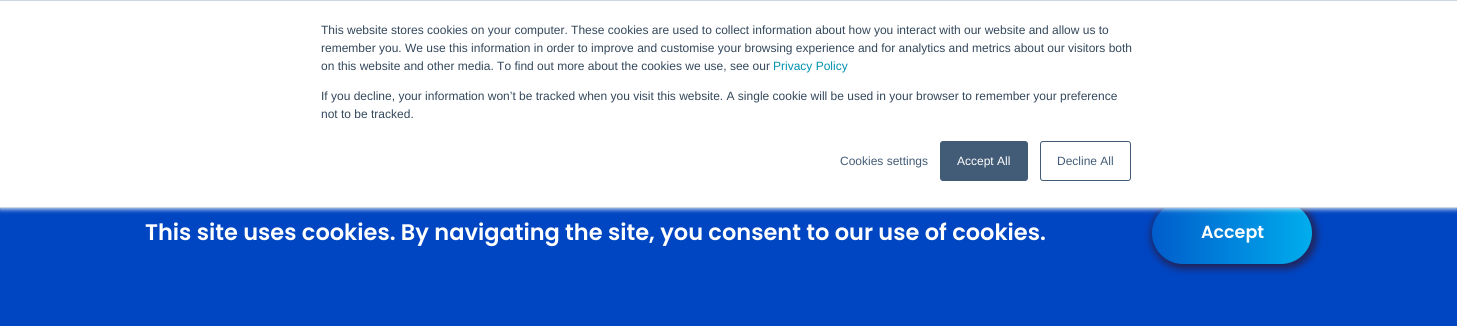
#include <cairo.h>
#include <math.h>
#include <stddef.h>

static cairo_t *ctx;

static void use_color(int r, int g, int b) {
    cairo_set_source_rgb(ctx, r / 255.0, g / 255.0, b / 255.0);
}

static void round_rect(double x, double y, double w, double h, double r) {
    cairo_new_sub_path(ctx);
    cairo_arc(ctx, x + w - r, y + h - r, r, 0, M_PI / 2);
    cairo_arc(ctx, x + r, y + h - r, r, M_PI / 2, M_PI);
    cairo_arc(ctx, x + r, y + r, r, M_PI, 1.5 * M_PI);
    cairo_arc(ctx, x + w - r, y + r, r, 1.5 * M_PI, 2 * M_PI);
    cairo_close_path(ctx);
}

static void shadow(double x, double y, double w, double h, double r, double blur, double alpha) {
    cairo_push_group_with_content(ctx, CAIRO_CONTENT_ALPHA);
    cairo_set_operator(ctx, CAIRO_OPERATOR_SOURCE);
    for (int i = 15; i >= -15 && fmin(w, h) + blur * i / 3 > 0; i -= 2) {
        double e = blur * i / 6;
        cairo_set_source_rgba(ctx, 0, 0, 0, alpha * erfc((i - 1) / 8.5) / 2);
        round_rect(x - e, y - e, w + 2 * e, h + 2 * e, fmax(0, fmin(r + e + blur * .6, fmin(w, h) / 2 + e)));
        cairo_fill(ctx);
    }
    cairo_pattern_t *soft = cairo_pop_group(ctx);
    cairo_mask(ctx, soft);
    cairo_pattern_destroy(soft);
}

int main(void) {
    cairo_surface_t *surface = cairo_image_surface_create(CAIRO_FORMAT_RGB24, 1457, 326);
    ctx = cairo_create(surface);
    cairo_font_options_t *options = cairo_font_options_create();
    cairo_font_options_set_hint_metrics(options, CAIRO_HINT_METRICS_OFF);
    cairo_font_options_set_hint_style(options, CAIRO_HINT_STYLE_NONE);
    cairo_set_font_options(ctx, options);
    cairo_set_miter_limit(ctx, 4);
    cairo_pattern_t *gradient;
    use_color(0, 69, 194);
    cairo_paint(ctx);
    use_color(100, 100, 111);
    shadow(20, 157, 111, 40, 6, 9.5, 0.2);
    use_color(33, 36, 92);
    shadow(1151, 201, 166, 68, 34, 3.5, 1);
    gradient = cairo_pattern_create_linear(1312, 233, 1106, 233);
    cairo_pattern_add_color_stop_rgba(gradient, 0, 0, 0.678, 0.929, 1);
    cairo_pattern_add_color_stop_rgba(gradient, 1, 0, 0.271, 0.761, 1);
    cairo_set_source(ctx, gradient);
    cairo_pattern_destroy(gradient);
    round_rect(1152, 202, 160, 62, 31);
    cairo_fill(ctx);
    use_color(234, 240, 246);
    shadow(0, 1, 1457, 208, 0, 2.5, 1);
    use_color(255, 255, 255);
    cairo_rectangle(ctx, 0, 1, 1457, 206);
    cairo_fill(ctx);
    use_color(203, 214, 226);
    cairo_rectangle(ctx, 0, 0, 1457, 1);
    cairo_fill(ctx);
    cairo_rectangle(ctx, 0, 207, 1457, 1);
    cairo_fill(ctx);
    cairo_select_font_face(ctx, "Liberation Sans", CAIRO_FONT_SLANT_NORMAL, CAIRO_FONT_WEIGHT_NORMAL);
    cairo_set_font_size(ctx, 12);
    use_color(51, 71, 91);
    cairo_move_to(ctx, 321, 34);
    cairo_show_text(ctx, "This website stores cookies on your computer. These cookies are used to collect information about how you interact with our website and allow us to");
    cairo_move_to(ctx, 321, 52);
    cairo_show_text(ctx, "remember you. We use this information in order to improve and customise your browsing experience and for analytics and metrics about our visitors both");
    cairo_move_to(ctx, 321, 70);
    cairo_show_text(ctx, "on this website and other media. To find out more about the cookies we use, see our");
    use_color(0, 145, 174);
    cairo_move_to(ctx, 773, 70);
    cairo_show_text(ctx, "Privacy Policy");
    use_color(51, 71, 91);
    cairo_move_to(ctx, 321, 100);
    cairo_show_text(ctx, "If you decline, your information won’t be tracked when you visit this website. A single cookie will be used in your browser to remember your preference");
    cairo_move_to(ctx, 321, 118);
    cairo_show_text(ctx, "not to be tracked.");
    use_color(66, 91, 118);
    cairo_move_to(ctx, 840, 165);
    cairo_show_text(ctx, "Cookies settings");
    round_rect(940.5, 141.5, 87, 39, 2.5);
    cairo_fill_preserve(ctx);
    cairo_set_line_width(ctx, 1);
    cairo_stroke(ctx);
    use_color(255, 255, 255);
    cairo_move_to(ctx, 957, 165);
    cairo_show_text(ctx, "Accept All");
    round_rect(1040.5, 141.5, 90, 39, 2.5);
    use_color(66, 91, 118);
    cairo_stroke(ctx);
    cairo_move_to(ctx, 1057, 165);
    cairo_show_text(ctx, "Decline All");
    cairo_select_font_face(ctx, "Poppins SemiBold", CAIRO_FONT_SLANT_NORMAL, CAIRO_FONT_WEIGHT_NORMAL);
    cairo_set_font_size(ctx, 22.5);
    use_color(255, 255, 255);
    cairo_move_to(ctx, 145, 240);
    cairo_show_text(ctx, "This site uses cookies. By navigating the site, you consent to our use of cookies.");
    cairo_set_font_size(ctx, 17.5);
    cairo_move_to(ctx, 1201, 238);
    cairo_show_text(ctx, "Accept");
    cairo_surface_write_to_png(surface, "result.png");
    cairo_font_options_destroy(options);
    cairo_destroy(ctx);
    cairo_surface_destroy(surface);
    return 0;
}
